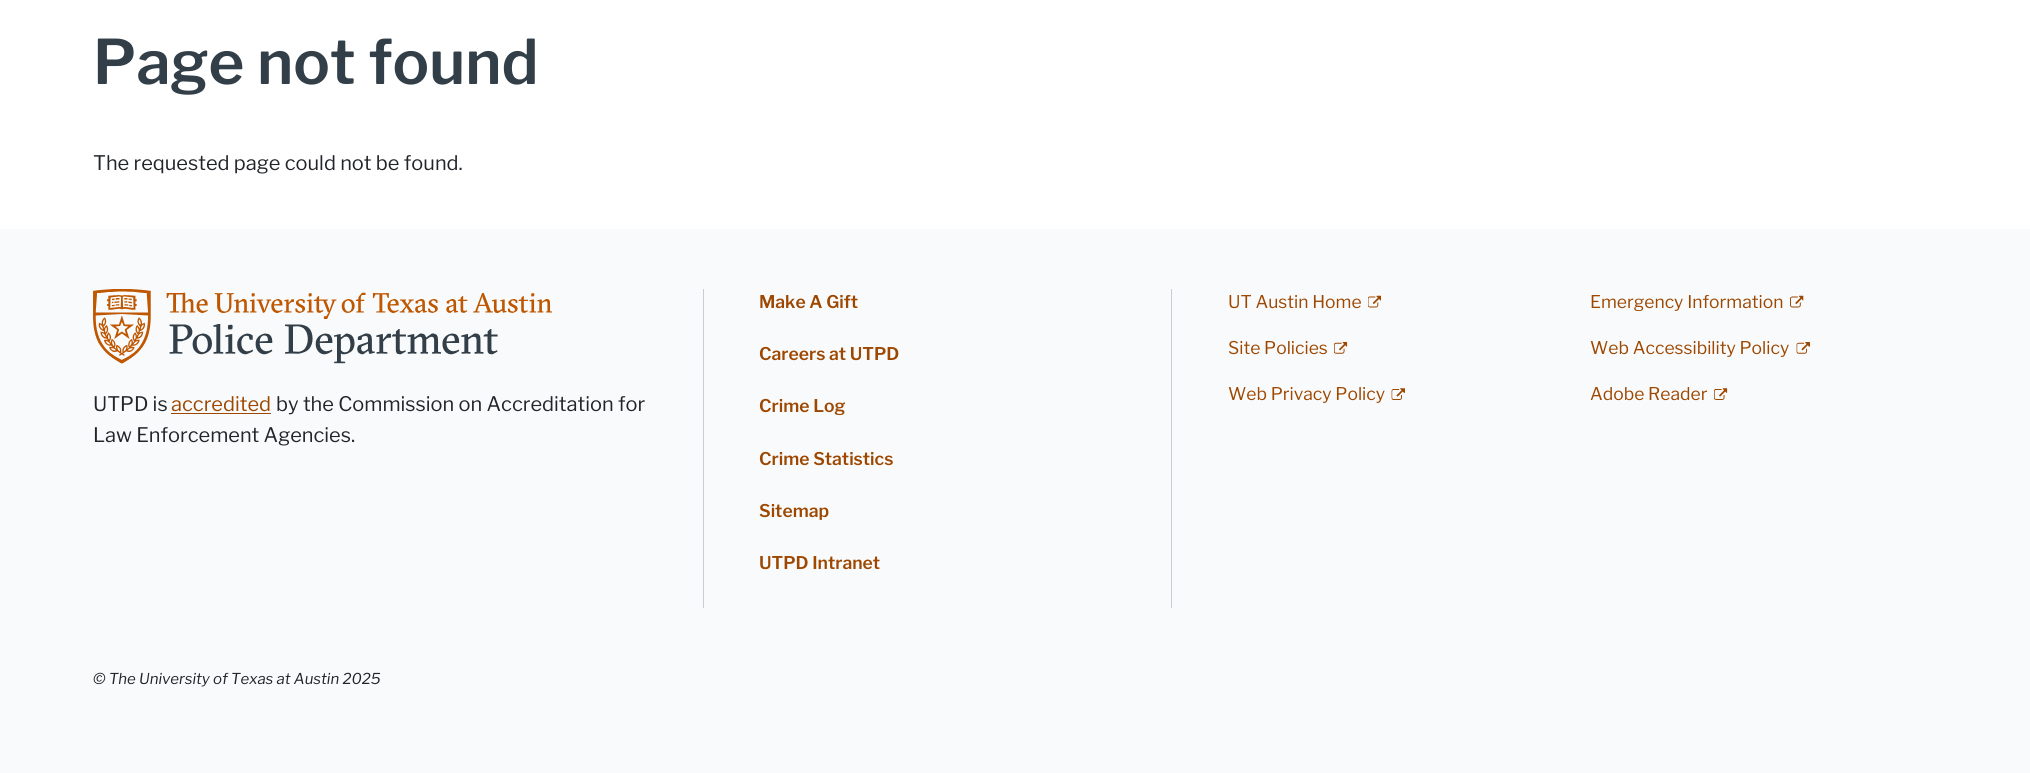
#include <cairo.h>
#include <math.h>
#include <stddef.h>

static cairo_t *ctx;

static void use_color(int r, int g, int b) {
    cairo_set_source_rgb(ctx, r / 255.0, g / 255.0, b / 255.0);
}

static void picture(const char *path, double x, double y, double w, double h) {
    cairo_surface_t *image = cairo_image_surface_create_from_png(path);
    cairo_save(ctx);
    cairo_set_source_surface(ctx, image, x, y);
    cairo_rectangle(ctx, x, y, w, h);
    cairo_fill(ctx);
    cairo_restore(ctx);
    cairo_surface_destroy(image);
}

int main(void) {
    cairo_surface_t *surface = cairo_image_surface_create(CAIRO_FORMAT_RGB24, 2030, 773);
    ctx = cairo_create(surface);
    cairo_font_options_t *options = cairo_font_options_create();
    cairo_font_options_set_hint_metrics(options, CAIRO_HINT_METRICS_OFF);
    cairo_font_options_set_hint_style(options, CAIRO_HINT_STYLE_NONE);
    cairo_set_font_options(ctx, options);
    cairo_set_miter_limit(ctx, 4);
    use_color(255, 255, 255);
    cairo_paint(ctx);
    cairo_select_font_face(ctx, "Libre Franklin SemiBold", CAIRO_FONT_SLANT_NORMAL, CAIRO_FONT_WEIGHT_NORMAL);
    cairo_set_font_size(ctx, 61.25);
    use_color(51, 63, 72);
    cairo_move_to(ctx, 93, 84);
    cairo_show_text(ctx, "Page not found");
    cairo_select_font_face(ctx, "Libre Franklin", CAIRO_FONT_SLANT_NORMAL, CAIRO_FONT_WEIGHT_NORMAL);
    cairo_set_font_size(ctx, 20);
    use_color(33, 37, 41);
    cairo_move_to(ctx, 93, 170);
    cairo_show_text(ctx, "The requested page could not be found.");
    use_color(249, 250, 251);
    cairo_rectangle(ctx, 0, 229, 2030, 544);
    cairo_fill(ctx);
    use_color(196, 205, 212);
    cairo_rectangle(ctx, 703, 289, 1, 319);
    cairo_fill(ctx);
    cairo_select_font_face(ctx, "Libre Franklin SemiBold", CAIRO_FONT_SLANT_NORMAL, CAIRO_FONT_WEIGHT_NORMAL);
    cairo_set_font_size(ctx, 17.5);
    use_color(157, 71, 0);
    cairo_move_to(ctx, 759, 308);
    cairo_show_text(ctx, "Make A Gift");
    cairo_move_to(ctx, 759, 360);
    cairo_show_text(ctx, "Careers at UTPD");
    cairo_move_to(ctx, 759, 412);
    cairo_show_text(ctx, "Crime Log");
    cairo_move_to(ctx, 759, 465);
    cairo_show_text(ctx, "Crime Statistics");
    cairo_move_to(ctx, 759, 517);
    cairo_show_text(ctx, "Sitemap");
    cairo_move_to(ctx, 759, 569);
    cairo_show_text(ctx, "UTPD Intranet");
    use_color(196, 205, 212);
    cairo_rectangle(ctx, 1171, 289, 1, 319);
    cairo_fill(ctx);
    cairo_select_font_face(ctx, "Libre Franklin", CAIRO_FONT_SLANT_NORMAL, CAIRO_FONT_WEIGHT_NORMAL);
    use_color(157, 71, 0);
    cairo_move_to(ctx, 1228, 308);
    cairo_show_text(ctx, "UT Austin Home");
    picture("img1.png", 1368, 295, 13, 13);
    cairo_move_to(ctx, 1590, 308);
    cairo_show_text(ctx, "Emergency Information");
    picture("img2.png", 1790, 295, 14, 13);
    cairo_move_to(ctx, 1228, 354);
    cairo_show_text(ctx, "Site Policies");
    picture("img3.png", 1334, 342, 14, 12);
    cairo_move_to(ctx, 1590, 354);
    cairo_show_text(ctx, "Web Accessibility Policy");
    picture("img4.png", 1796, 342, 14, 12);
    cairo_move_to(ctx, 1228, 400);
    cairo_show_text(ctx, "Web Privacy Policy");
    picture("img5.png", 1391, 388, 14, 12);
    cairo_move_to(ctx, 1590, 400);
    cairo_show_text(ctx, "Adobe Reader");
    picture("img6.png", 1714, 388, 14, 12);
    picture("img7.png", 93, 289, 460, 75);
    cairo_set_font_size(ctx, 20);
    use_color(33, 37, 41);
    cairo_move_to(ctx, 93, 411);
    cairo_show_text(ctx, "UTPD is");
    use_color(157, 71, 0);
    cairo_move_to(ctx, 171, 411);
    cairo_show_text(ctx, "accredited");
    cairo_rectangle(ctx, 171, 413, 100, 1);
    cairo_fill(ctx);
    use_color(33, 37, 41);
    cairo_move_to(ctx, 276, 411);
    cairo_show_text(ctx, "by the Commission on Accreditation for");
    cairo_move_to(ctx, 93, 442);
    cairo_show_text(ctx, "Law Enforcement Agencies.");
    cairo_select_font_face(ctx, "Libre Franklin", CAIRO_FONT_SLANT_ITALIC, CAIRO_FONT_WEIGHT_NORMAL);
    cairo_set_font_size(ctx, 15);
    cairo_move_to(ctx, 93, 684);
    cairo_show_text(ctx, "© The University of Texas at Austin 2025");
    cairo_surface_write_to_png(surface, "result.png");
    cairo_font_options_destroy(options);
    cairo_destroy(ctx);
    cairo_surface_destroy(surface);
    return 0;
}
